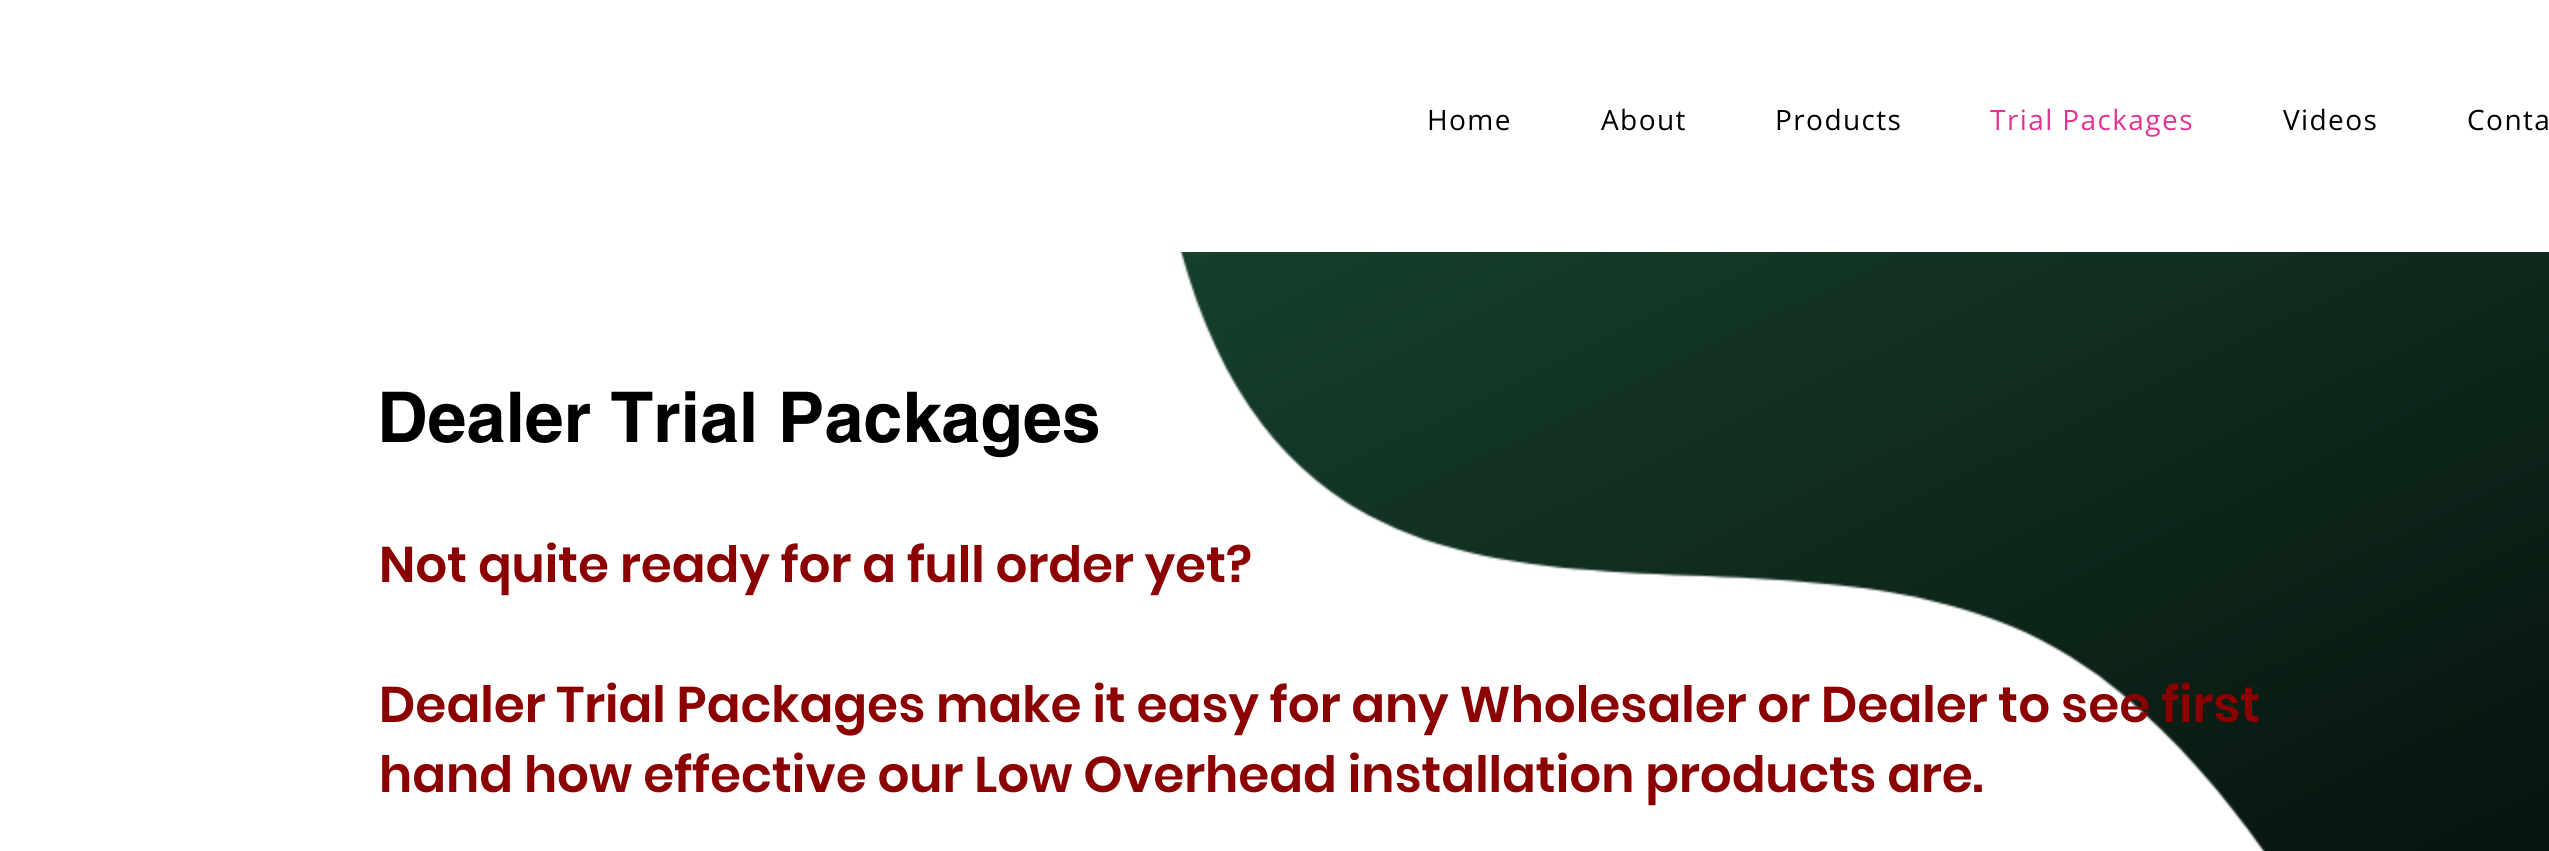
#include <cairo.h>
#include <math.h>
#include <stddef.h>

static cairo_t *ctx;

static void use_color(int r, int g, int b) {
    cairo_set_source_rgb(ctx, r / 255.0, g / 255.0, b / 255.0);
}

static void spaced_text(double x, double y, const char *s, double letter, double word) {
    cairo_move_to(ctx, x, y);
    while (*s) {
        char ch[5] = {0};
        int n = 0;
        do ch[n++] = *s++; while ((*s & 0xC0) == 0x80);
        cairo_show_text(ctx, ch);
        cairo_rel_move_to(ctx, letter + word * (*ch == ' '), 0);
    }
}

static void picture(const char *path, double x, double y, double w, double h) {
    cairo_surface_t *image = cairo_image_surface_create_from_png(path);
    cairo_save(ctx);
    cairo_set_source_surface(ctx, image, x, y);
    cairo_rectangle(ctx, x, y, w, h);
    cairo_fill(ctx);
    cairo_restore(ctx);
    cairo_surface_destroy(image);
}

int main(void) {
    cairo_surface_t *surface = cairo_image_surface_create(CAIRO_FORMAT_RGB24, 2549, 851);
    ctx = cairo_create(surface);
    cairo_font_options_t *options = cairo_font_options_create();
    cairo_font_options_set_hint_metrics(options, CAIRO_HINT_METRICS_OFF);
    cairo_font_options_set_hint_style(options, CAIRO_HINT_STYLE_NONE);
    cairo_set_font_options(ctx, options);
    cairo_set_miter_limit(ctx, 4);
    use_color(255, 255, 255);
    cairo_paint(ctx);
    cairo_select_font_face(ctx, "Open Sans", CAIRO_FONT_SLANT_NORMAL, CAIRO_FONT_WEIGHT_NORMAL);
    cairo_set_font_size(ctx, 28);
    use_color(0, 0, 0);
    spaced_text(1427, 130, "Home", 1.4, 0);
    spaced_text(1601, 130, "About", 1.4, 0);
    spaced_text(1775, 130, "Products", 1.4, 0);
    use_color(227, 50, 146);
    spaced_text(1990, 130, "Trial Packages", 1.4, 0);
    use_color(0, 0, 0);
    spaced_text(2283, 130, "Videos", 1.4, 0);
    spaced_text(2467, 130, "Conta", 1.4, 0);
    cairo_select_font_face(ctx, "helvetica", CAIRO_FONT_SLANT_NORMAL, CAIRO_FONT_WEIGHT_BOLD);
    cairo_set_font_size(ctx, 70);
    cairo_move_to(ctx, 377, 442);
    cairo_show_text(ctx, "Dealer Trial Packages");
    picture("img1.png", 1150, 252, 1399, 599);
    cairo_select_font_face(ctx, "Poppins SemiBold", CAIRO_FONT_SLANT_NORMAL, CAIRO_FONT_WEIGHT_NORMAL);
    cairo_set_font_size(ctx, 50);
    use_color(139, 0, 0);
    cairo_move_to(ctx, 379, 582);
    cairo_show_text(ctx, "Not quite ready for a full order yet?");
    cairo_move_to(ctx, 379, 722);
    cairo_show_text(ctx, "Dealer Trial Packages make it easy for any Wholesaler or Dealer to see first");
    cairo_move_to(ctx, 379, 792);
    cairo_show_text(ctx, "hand how effective our Low Overhead installation products are.");
    cairo_surface_write_to_png(surface, "result.png");
    cairo_font_options_destroy(options);
    cairo_destroy(ctx);
    cairo_surface_destroy(surface);
    return 0;
}
